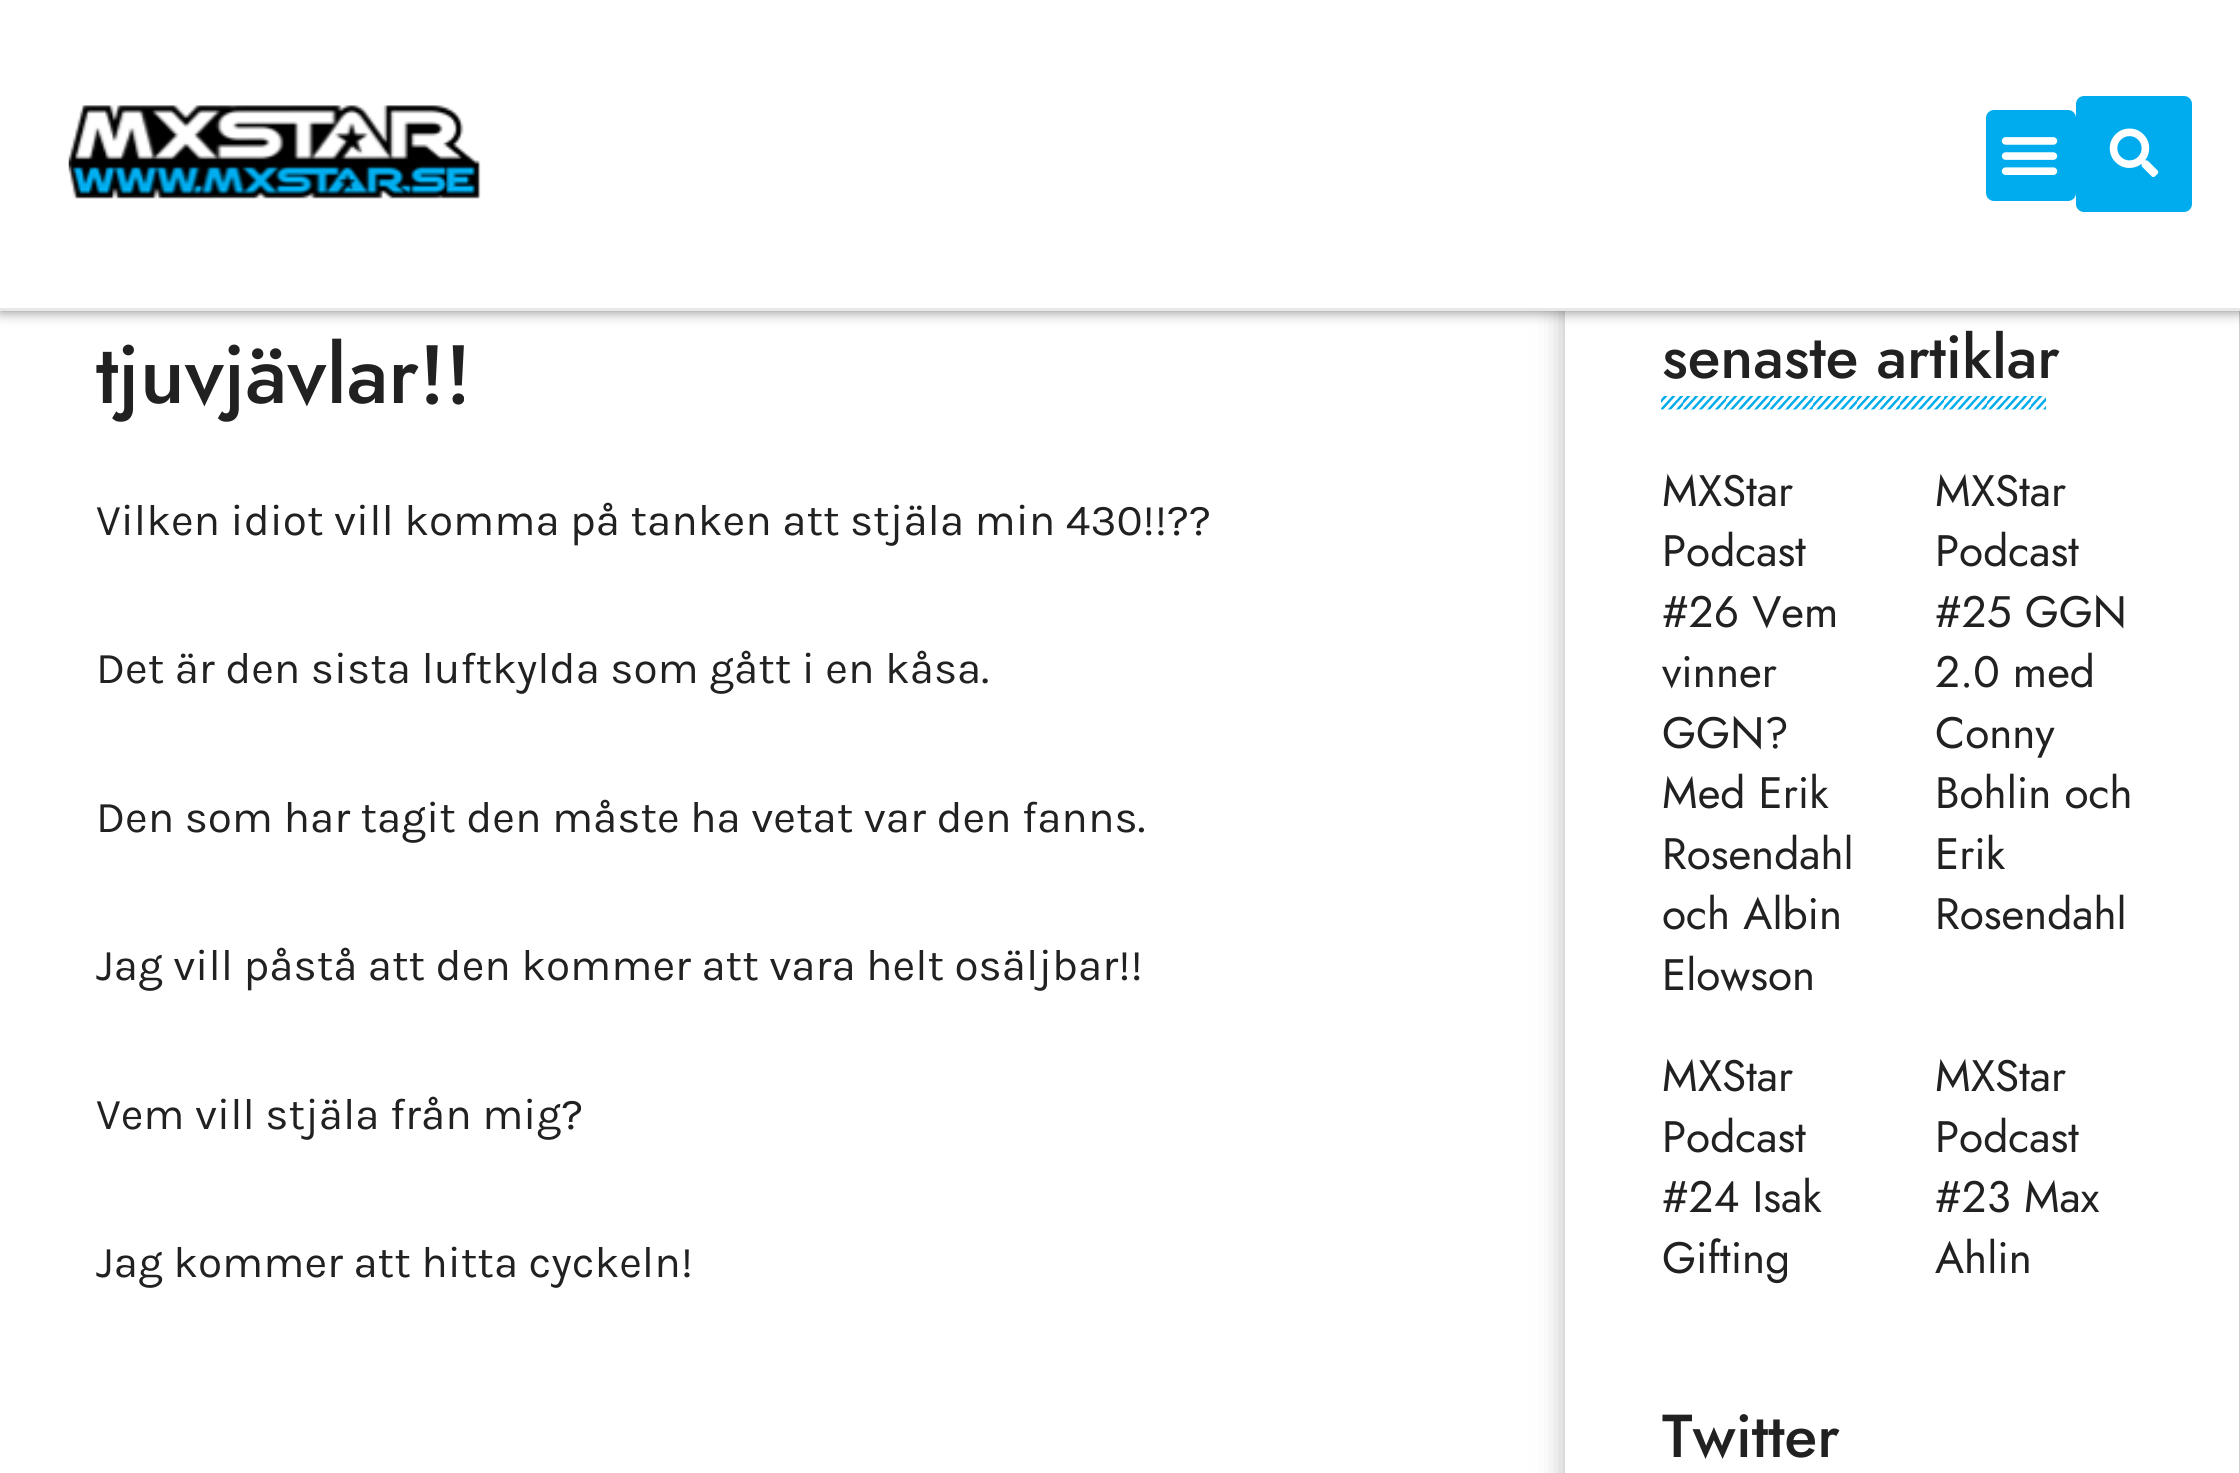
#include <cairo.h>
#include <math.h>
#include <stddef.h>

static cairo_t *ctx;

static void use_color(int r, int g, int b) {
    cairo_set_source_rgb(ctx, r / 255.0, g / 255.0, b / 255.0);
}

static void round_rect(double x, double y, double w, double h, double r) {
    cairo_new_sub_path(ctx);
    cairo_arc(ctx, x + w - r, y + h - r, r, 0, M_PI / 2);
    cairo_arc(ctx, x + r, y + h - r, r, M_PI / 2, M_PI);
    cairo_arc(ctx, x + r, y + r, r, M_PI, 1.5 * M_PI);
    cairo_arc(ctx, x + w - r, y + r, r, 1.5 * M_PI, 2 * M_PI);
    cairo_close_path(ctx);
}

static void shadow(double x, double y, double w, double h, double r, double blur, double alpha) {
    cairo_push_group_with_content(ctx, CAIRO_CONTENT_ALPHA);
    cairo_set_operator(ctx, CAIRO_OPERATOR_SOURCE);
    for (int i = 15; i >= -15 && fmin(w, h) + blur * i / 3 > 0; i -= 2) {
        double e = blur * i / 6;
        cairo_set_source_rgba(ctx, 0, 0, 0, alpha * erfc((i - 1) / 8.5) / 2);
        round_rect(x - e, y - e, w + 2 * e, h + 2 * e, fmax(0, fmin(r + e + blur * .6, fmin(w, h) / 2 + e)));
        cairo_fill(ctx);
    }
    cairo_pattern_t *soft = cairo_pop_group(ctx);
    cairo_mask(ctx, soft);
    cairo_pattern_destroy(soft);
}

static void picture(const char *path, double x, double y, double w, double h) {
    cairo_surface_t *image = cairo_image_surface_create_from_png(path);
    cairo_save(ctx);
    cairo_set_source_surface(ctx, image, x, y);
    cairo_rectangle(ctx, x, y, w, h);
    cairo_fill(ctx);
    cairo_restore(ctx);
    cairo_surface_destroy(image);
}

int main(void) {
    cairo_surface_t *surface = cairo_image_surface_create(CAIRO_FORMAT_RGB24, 2240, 1473);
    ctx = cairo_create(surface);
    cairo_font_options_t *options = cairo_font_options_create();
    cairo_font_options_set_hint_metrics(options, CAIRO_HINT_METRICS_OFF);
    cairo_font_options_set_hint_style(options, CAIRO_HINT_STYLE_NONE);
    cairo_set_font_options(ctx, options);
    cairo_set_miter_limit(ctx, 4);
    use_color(237, 237, 237);
    cairo_paint(ctx);
    use_color(255, 255, 255);
    cairo_rectangle(ctx, 0, 311, 1565, 1162);
    cairo_fill(ctx);
    use_color(110, 110, 110);
    shadow(1565, 264, 674, 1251, 0, 14, 0.5);
    use_color(255, 255, 255);
    cairo_rectangle(ctx, 1565, 311, 674, 1162);
    cairo_fill(ctx);
    use_color(0, 0, 0);
    shadow(0, 0, 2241, 311, 0, 7, 0.5);
    use_color(255, 255, 255);
    cairo_rectangle(ctx, 0, 0, 2240, 308);
    cairo_fill(ctx);
    use_color(232, 232, 232);
    cairo_rectangle(ctx, 0, 308, 2240, 3);
    cairo_fill(ctx);
    picture("img1.png", 68, 105, 413, 94);
    use_color(0, 172, 237);
    round_rect(1986, 110, 90, 91, 8);
    cairo_fill(ctx);
    picture("img2.png", 2001, 137, 57, 38);
    round_rect(2076, 96, 116, 116, 8);
    cairo_fill(ctx);
    picture("img3.png", 2109, 128, 50, 49);
    cairo_select_font_face(ctx, "Jost Medium", CAIRO_FONT_SLANT_NORMAL, CAIRO_FONT_WEIGHT_NORMAL);
    cairo_set_font_size(ctx, 82.5);
    use_color(33, 33, 33);
    cairo_move_to(ctx, 96, 403);
    cairo_show_text(ctx, "tjuvjävlar!!");
    cairo_select_font_face(ctx, "Karla", CAIRO_FONT_SLANT_NORMAL, CAIRO_FONT_WEIGHT_NORMAL);
    cairo_set_font_size(ctx, 44);
    cairo_move_to(ctx, 96, 535);
    cairo_show_text(ctx, "Vilken idiot vill komma på tanken att stjäla min 430!!?\077");
    cairo_move_to(ctx, 96, 683);
    cairo_show_text(ctx, "Det är den sista luftkylda som gått i en kåsa.");
    cairo_move_to(ctx, 96, 832);
    cairo_show_text(ctx, "Den som har tagit den måste ha vetat var den fanns.");
    cairo_move_to(ctx, 96, 980);
    cairo_show_text(ctx, "Jag vill påstå att den kommer att vara helt osäljbar!!");
    cairo_move_to(ctx, 96, 1129);
    cairo_show_text(ctx, "Vem vill stjäla från mig?");
    cairo_move_to(ctx, 96, 1277);
    cairo_show_text(ctx, "Jag kommer att hitta cyckeln!");
    cairo_select_font_face(ctx, "Jost Medium", CAIRO_FONT_SLANT_NORMAL, CAIRO_FONT_WEIGHT_NORMAL);
    cairo_set_font_size(ctx, 60.5);
    cairo_move_to(ctx, 1662, 378);
    cairo_show_text(ctx, "senaste artiklar");
    picture("img4.png", 1661, 396, 385, 14);
    cairo_select_font_face(ctx, "Jost", CAIRO_FONT_SLANT_NORMAL, CAIRO_FONT_WEIGHT_NORMAL);
    cairo_set_font_size(ctx, 44);
    cairo_move_to(ctx, 1662, 506);
    cairo_show_text(ctx, "MXStar");
    cairo_move_to(ctx, 1662, 566);
    cairo_show_text(ctx, "Podcast");
    cairo_move_to(ctx, 1662, 627);
    cairo_show_text(ctx, "#26 Vem");
    cairo_move_to(ctx, 1662, 687);
    cairo_show_text(ctx, "vinner");
    cairo_move_to(ctx, 1662, 748);
    cairo_show_text(ctx, "GGN?");
    cairo_move_to(ctx, 1662, 808);
    cairo_show_text(ctx, "Med Erik");
    cairo_move_to(ctx, 1662, 869);
    cairo_show_text(ctx, "Rosendahl");
    cairo_move_to(ctx, 1662, 929);
    cairo_show_text(ctx, "och Albin");
    cairo_move_to(ctx, 1662, 990);
    cairo_show_text(ctx, "Elowson");
    cairo_move_to(ctx, 1935, 506);
    cairo_show_text(ctx, "MXStar");
    cairo_move_to(ctx, 1935, 566);
    cairo_show_text(ctx, "Podcast");
    cairo_move_to(ctx, 1935, 627);
    cairo_show_text(ctx, "#25 GGN");
    cairo_move_to(ctx, 1935, 687);
    cairo_show_text(ctx, "2.0 med");
    cairo_move_to(ctx, 1935, 748);
    cairo_show_text(ctx, "Conny");
    cairo_move_to(ctx, 1935, 808);
    cairo_show_text(ctx, "Bohlin och");
    cairo_move_to(ctx, 1935, 869);
    cairo_show_text(ctx, "Erik");
    cairo_move_to(ctx, 1935, 929);
    cairo_show_text(ctx, "Rosendahl");
    cairo_move_to(ctx, 1662, 1091);
    cairo_show_text(ctx, "MXStar");
    cairo_move_to(ctx, 1662, 1152);
    cairo_show_text(ctx, "Podcast");
    cairo_move_to(ctx, 1662, 1212);
    cairo_show_text(ctx, "#24 Isak");
    cairo_move_to(ctx, 1662, 1273);
    cairo_show_text(ctx, "Gifting");
    cairo_move_to(ctx, 1935, 1091);
    cairo_show_text(ctx, "MXStar");
    cairo_move_to(ctx, 1935, 1152);
    cairo_show_text(ctx, "Podcast");
    cairo_move_to(ctx, 1935, 1212);
    cairo_show_text(ctx, "#23 Max");
    cairo_move_to(ctx, 1935, 1273);
    cairo_show_text(ctx, "Ahlin");
    cairo_select_font_face(ctx, "Jost Medium", CAIRO_FONT_SLANT_NORMAL, CAIRO_FONT_WEIGHT_NORMAL);
    cairo_set_font_size(ctx, 60.5);
    cairo_move_to(ctx, 1662, 1457);
    cairo_show_text(ctx, "Twitter");
    cairo_surface_write_to_png(surface, "result.png");
    cairo_font_options_destroy(options);
    cairo_destroy(ctx);
    cairo_surface_destroy(surface);
    return 0;
}
